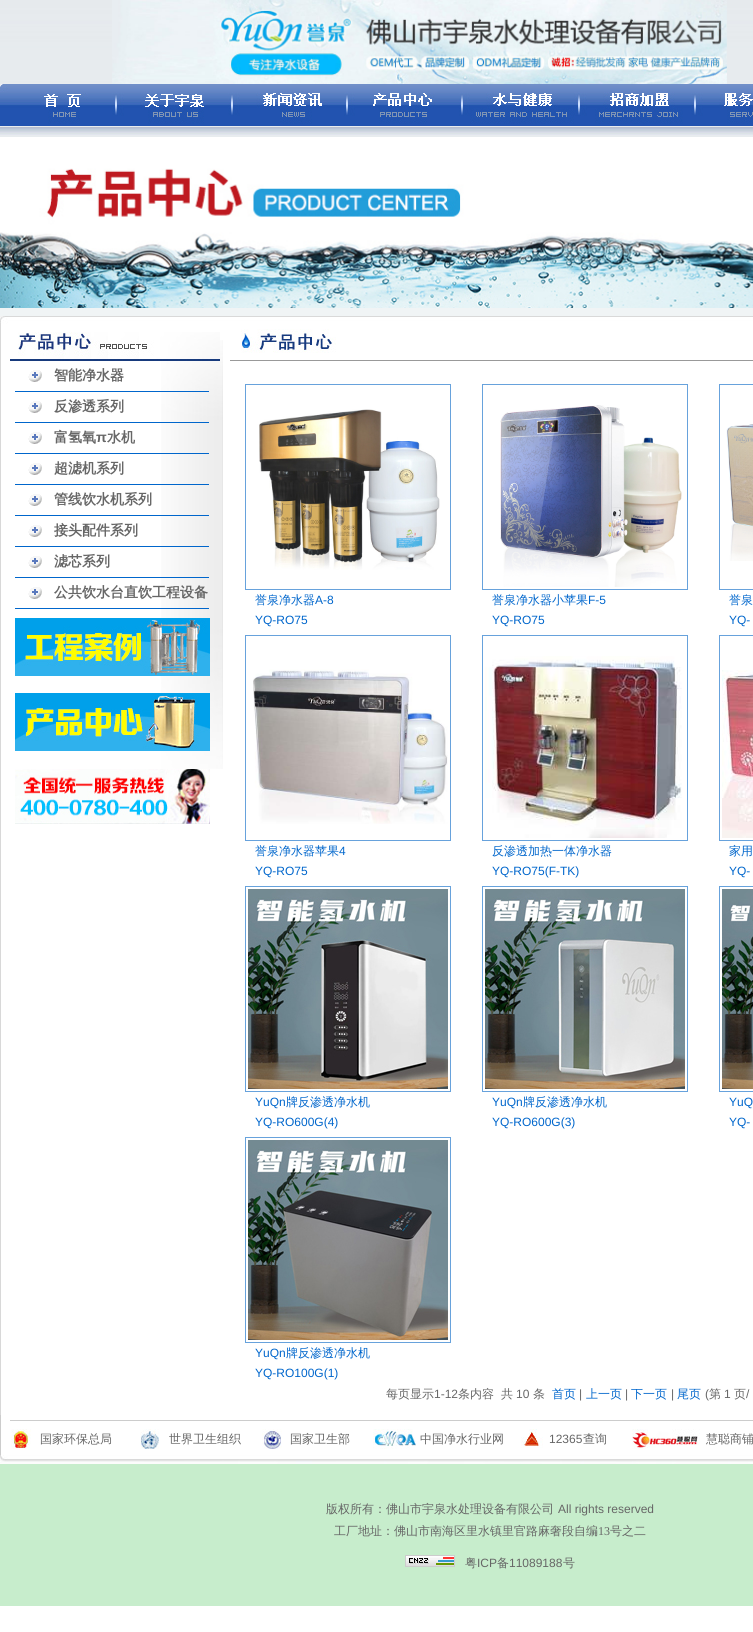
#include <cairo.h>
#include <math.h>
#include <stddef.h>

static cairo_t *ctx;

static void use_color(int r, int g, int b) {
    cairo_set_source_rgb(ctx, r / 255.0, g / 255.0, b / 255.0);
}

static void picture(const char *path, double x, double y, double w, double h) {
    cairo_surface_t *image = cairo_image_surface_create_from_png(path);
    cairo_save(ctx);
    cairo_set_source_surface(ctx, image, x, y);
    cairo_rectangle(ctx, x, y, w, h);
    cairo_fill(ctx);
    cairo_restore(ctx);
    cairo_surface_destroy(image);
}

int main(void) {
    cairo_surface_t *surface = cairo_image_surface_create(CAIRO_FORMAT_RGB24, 753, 1632);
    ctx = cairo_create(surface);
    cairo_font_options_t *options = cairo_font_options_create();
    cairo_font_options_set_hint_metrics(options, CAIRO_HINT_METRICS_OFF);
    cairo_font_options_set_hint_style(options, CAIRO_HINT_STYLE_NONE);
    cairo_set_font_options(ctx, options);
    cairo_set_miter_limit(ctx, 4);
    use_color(255, 255, 255);
    cairo_paint(ctx);
    picture("img1.png", 0, 0, 753, 137);
    picture("img2.png", 112, 0, 615, 84);
    picture("img3.png", 0, 84, 116, 42);
    picture("img4.png", 116, 84, 116, 42);
    picture("img5.png", 232, 84, 115, 42);
    picture("img6.png", 347, 84, 115, 42);
    picture("img7.png", 462, 84, 117, 42);
    picture("img8.png", 579, 84, 116, 42);
    picture("img9.png", 695, 84, 58, 42);
    picture("img10.png", 0, 127, 753, 8);
    picture("img11.png", 0, 137, 753, 171);
    use_color(240, 244, 245);
    cairo_rectangle(ctx, 0, 308, 753, 8);
    cairo_fill(ctx);
    picture("img12.png", 0, 316, 753, 8);
    use_color(216, 216, 216);
    cairo_rectangle(ctx, 0, 324, 1, 1091);
    cairo_fill(ctx);
    picture("img13.png", 161, 340, 62, 429);
    picture("img14.png", 10, 332, 210, 29);
    cairo_select_font_face(ctx, "WenQuanYi Zen Hei", CAIRO_FONT_SLANT_NORMAL, CAIRO_FONT_WEIGHT_BOLD);
    cairo_set_font_size(ctx, 14);
    use_color(102, 102, 102);
    cairo_move_to(ctx, 54, 380);
    cairo_show_text(ctx, "智能净水器");
    use_color(0, 102, 204);
    cairo_rectangle(ctx, 15, 391, 194, 1);
    cairo_fill(ctx);
    picture("img15.png", 28, 370, 14, 12);
    use_color(102, 102, 102);
    cairo_move_to(ctx, 54, 411);
    cairo_show_text(ctx, "反渗透系列");
    use_color(0, 102, 204);
    cairo_rectangle(ctx, 15, 422, 194, 1);
    cairo_fill(ctx);
    picture("img15.png", 28, 401, 14, 12);
    use_color(102, 102, 102);
    cairo_move_to(ctx, 54, 442);
    cairo_show_text(ctx, "富氢氧");
    cairo_select_font_face(ctx, "Liberation Sans", CAIRO_FONT_SLANT_NORMAL, CAIRO_FONT_WEIGHT_BOLD);
    cairo_move_to(ctx, 96, 442);
    cairo_show_text(ctx, "π");
    cairo_select_font_face(ctx, "WenQuanYi Zen Hei", CAIRO_FONT_SLANT_NORMAL, CAIRO_FONT_WEIGHT_BOLD);
    cairo_move_to(ctx, 107, 442);
    cairo_show_text(ctx, "水机");
    use_color(0, 102, 204);
    cairo_rectangle(ctx, 15, 453, 194, 1);
    cairo_fill(ctx);
    picture("img15.png", 28, 432, 14, 12);
    use_color(102, 102, 102);
    cairo_move_to(ctx, 54, 473);
    cairo_show_text(ctx, "超滤机系列");
    use_color(0, 102, 204);
    cairo_rectangle(ctx, 15, 484, 194, 1);
    cairo_fill(ctx);
    picture("img15.png", 28, 463, 14, 12);
    use_color(102, 102, 102);
    cairo_move_to(ctx, 54, 504);
    cairo_show_text(ctx, "管线饮水机系列");
    use_color(0, 102, 204);
    cairo_rectangle(ctx, 15, 515, 194, 1);
    cairo_fill(ctx);
    picture("img15.png", 28, 494, 14, 12);
    use_color(102, 102, 102);
    cairo_move_to(ctx, 54, 535);
    cairo_show_text(ctx, "接头配件系列");
    use_color(0, 102, 204);
    cairo_rectangle(ctx, 15, 546, 194, 1);
    cairo_fill(ctx);
    picture("img15.png", 28, 525, 14, 12);
    use_color(102, 102, 102);
    cairo_move_to(ctx, 54, 566);
    cairo_show_text(ctx, "滤芯系列");
    use_color(0, 102, 204);
    cairo_rectangle(ctx, 15, 577, 194, 1);
    cairo_fill(ctx);
    picture("img15.png", 28, 556, 14, 12);
    use_color(102, 102, 102);
    cairo_move_to(ctx, 54, 597);
    cairo_show_text(ctx, "公共饮水台直饮工程设备");
    use_color(0, 102, 204);
    cairo_rectangle(ctx, 15, 608, 194, 1);
    cairo_fill(ctx);
    picture("img15.png", 28, 587, 14, 12);
    picture("img16.png", 15, 618, 195, 58);
    picture("img17.png", 15, 693, 195, 58);
    picture("img18.png", 15, 769, 195, 55);
    picture("img19.png", 241, 329, 95, 24);
    use_color(153, 153, 153);
    cairo_rectangle(ctx, 230, 360, 523, 1);
    cairo_fill(ctx);
    cairo_rectangle(ctx, 245.5, 384.5, 205, 205);
    use_color(103, 162, 220);
    cairo_set_line_width(ctx, 1);
    cairo_stroke(ctx);
    picture("img20.png", 259, 409, 181, 161);
    cairo_select_font_face(ctx, "WenQuanYi Zen Hei Medium", CAIRO_FONT_SLANT_NORMAL, CAIRO_FONT_WEIGHT_NORMAL);
    cairo_set_font_size(ctx, 12);
    use_color(0, 102, 204);
    cairo_move_to(ctx, 255, 604);
    cairo_show_text(ctx, "誉泉净水器");
    cairo_select_font_face(ctx, "Liberation Sans", CAIRO_FONT_SLANT_NORMAL, CAIRO_FONT_WEIGHT_NORMAL);
    cairo_move_to(ctx, 315, 604);
    cairo_show_text(ctx, "A-8");
    cairo_move_to(ctx, 255, 624);
    cairo_show_text(ctx, "YQ-RO75");
    cairo_rectangle(ctx, 482.5, 384.5, 205, 205);
    use_color(103, 162, 220);
    cairo_stroke(ctx);
    picture("img21.png", 500, 405, 182, 182);
    cairo_select_font_face(ctx, "WenQuanYi Zen Hei Medium", CAIRO_FONT_SLANT_NORMAL, CAIRO_FONT_WEIGHT_NORMAL);
    use_color(0, 102, 204);
    cairo_move_to(ctx, 492, 604);
    cairo_show_text(ctx, "誉泉净水器小苹果");
    cairo_select_font_face(ctx, "Liberation Sans", CAIRO_FONT_SLANT_NORMAL, CAIRO_FONT_WEIGHT_NORMAL);
    cairo_move_to(ctx, 588, 604);
    cairo_show_text(ctx, "F-5");
    cairo_move_to(ctx, 492, 624);
    cairo_show_text(ctx, "YQ-RO75");
    cairo_rectangle(ctx, 719.5, 384.5, 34, 205);
    use_color(103, 162, 220);
    cairo_stroke(ctx);
    picture("img22.png", 726, 424, 27, 137);
    cairo_select_font_face(ctx, "WenQuanYi Zen Hei Medium", CAIRO_FONT_SLANT_NORMAL, CAIRO_FONT_WEIGHT_NORMAL);
    use_color(0, 102, 204);
    cairo_move_to(ctx, 729, 604);
    cairo_show_text(ctx, "誉泉");
    cairo_select_font_face(ctx, "Liberation Sans", CAIRO_FONT_SLANT_NORMAL, CAIRO_FONT_WEIGHT_NORMAL);
    cairo_move_to(ctx, 729, 624);
    cairo_show_text(ctx, "YQ-");
    cairo_rectangle(ctx, 245.5, 635.5, 205, 205);
    use_color(103, 162, 220);
    cairo_stroke(ctx);
    picture("img23.png", 253, 669, 195, 155);
    cairo_select_font_face(ctx, "WenQuanYi Zen Hei Medium", CAIRO_FONT_SLANT_NORMAL, CAIRO_FONT_WEIGHT_NORMAL);
    use_color(0, 102, 204);
    cairo_move_to(ctx, 255, 855);
    cairo_show_text(ctx, "誉泉净水器苹果");
    cairo_select_font_face(ctx, "Liberation Sans", CAIRO_FONT_SLANT_NORMAL, CAIRO_FONT_WEIGHT_NORMAL);
    cairo_move_to(ctx, 339, 855);
    cairo_show_text(ctx, "4");
    cairo_move_to(ctx, 255, 875);
    cairo_show_text(ctx, "YQ-RO75");
    cairo_rectangle(ctx, 482.5, 635.5, 205, 205);
    use_color(103, 162, 220);
    cairo_stroke(ctx);
    picture("img24.png", 485, 656, 197, 182);
    cairo_select_font_face(ctx, "WenQuanYi Zen Hei Medium", CAIRO_FONT_SLANT_NORMAL, CAIRO_FONT_WEIGHT_NORMAL);
    use_color(0, 102, 204);
    cairo_move_to(ctx, 492, 855);
    cairo_show_text(ctx, "反渗透加热一体净水器");
    cairo_select_font_face(ctx, "Liberation Sans", CAIRO_FONT_SLANT_NORMAL, CAIRO_FONT_WEIGHT_NORMAL);
    cairo_move_to(ctx, 492, 875);
    cairo_show_text(ctx, "YQ-RO75(F-TK)");
    cairo_rectangle(ctx, 719.5, 635.5, 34, 205);
    use_color(103, 162, 220);
    cairo_stroke(ctx);
    picture("img25.png", 722, 670, 31, 168);
    cairo_select_font_face(ctx, "WenQuanYi Zen Hei Medium", CAIRO_FONT_SLANT_NORMAL, CAIRO_FONT_WEIGHT_NORMAL);
    use_color(0, 102, 204);
    cairo_move_to(ctx, 729, 855);
    cairo_show_text(ctx, "家用");
    cairo_select_font_face(ctx, "Liberation Sans", CAIRO_FONT_SLANT_NORMAL, CAIRO_FONT_WEIGHT_NORMAL);
    cairo_move_to(ctx, 729, 875);
    cairo_show_text(ctx, "YQ-");
    cairo_rectangle(ctx, 245.5, 886.5, 205, 205);
    use_color(103, 162, 220);
    cairo_stroke(ctx);
    picture("img26.png", 248, 889, 200, 200);
    use_color(0, 102, 204);
    cairo_move_to(ctx, 255, 1106);
    cairo_show_text(ctx, "YuQn");
    cairo_select_font_face(ctx, "WenQuanYi Zen Hei Medium", CAIRO_FONT_SLANT_NORMAL, CAIRO_FONT_WEIGHT_NORMAL);
    cairo_move_to(ctx, 286, 1106);
    cairo_show_text(ctx, "牌反渗透净水机");
    cairo_select_font_face(ctx, "Liberation Sans", CAIRO_FONT_SLANT_NORMAL, CAIRO_FONT_WEIGHT_NORMAL);
    cairo_move_to(ctx, 255, 1126);
    cairo_show_text(ctx, "YQ-RO600G(4)");
    cairo_rectangle(ctx, 482.5, 886.5, 205, 205);
    use_color(103, 162, 220);
    cairo_stroke(ctx);
    picture("img27.png", 485, 889, 200, 200);
    use_color(0, 102, 204);
    cairo_move_to(ctx, 492, 1106);
    cairo_show_text(ctx, "YuQn");
    cairo_select_font_face(ctx, "WenQuanYi Zen Hei Medium", CAIRO_FONT_SLANT_NORMAL, CAIRO_FONT_WEIGHT_NORMAL);
    cairo_move_to(ctx, 523, 1106);
    cairo_show_text(ctx, "牌反渗透净水机");
    cairo_select_font_face(ctx, "Liberation Sans", CAIRO_FONT_SLANT_NORMAL, CAIRO_FONT_WEIGHT_NORMAL);
    cairo_move_to(ctx, 492, 1126);
    cairo_show_text(ctx, "YQ-RO600G(3)");
    cairo_rectangle(ctx, 719.5, 886.5, 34, 205);
    use_color(103, 162, 220);
    cairo_stroke(ctx);
    picture("img28.png", 722, 889, 31, 200);
    use_color(0, 102, 204);
    cairo_move_to(ctx, 729, 1106);
    cairo_show_text(ctx, "YuQ");
    cairo_move_to(ctx, 729, 1126);
    cairo_show_text(ctx, "YQ-");
    cairo_rectangle(ctx, 245.5, 1137.5, 205, 205);
    use_color(103, 162, 220);
    cairo_stroke(ctx);
    picture("img29.png", 248, 1140, 200, 200);
    use_color(0, 102, 204);
    cairo_move_to(ctx, 255, 1357);
    cairo_show_text(ctx, "YuQn");
    cairo_select_font_face(ctx, "WenQuanYi Zen Hei Medium", CAIRO_FONT_SLANT_NORMAL, CAIRO_FONT_WEIGHT_NORMAL);
    cairo_move_to(ctx, 286, 1357);
    cairo_show_text(ctx, "牌反渗透净水机");
    cairo_select_font_face(ctx, "Liberation Sans", CAIRO_FONT_SLANT_NORMAL, CAIRO_FONT_WEIGHT_NORMAL);
    cairo_move_to(ctx, 255, 1377);
    cairo_show_text(ctx, "YQ-RO100G(1)");
    cairo_select_font_face(ctx, "WenQuanYi Zen Hei Medium", CAIRO_FONT_SLANT_NORMAL, CAIRO_FONT_WEIGHT_NORMAL);
    use_color(102, 102, 102);
    cairo_move_to(ctx, 386, 1398);
    cairo_show_text(ctx, "每页显示");
    cairo_select_font_face(ctx, "Liberation Sans", CAIRO_FONT_SLANT_NORMAL, CAIRO_FONT_WEIGHT_NORMAL);
    cairo_move_to(ctx, 434, 1398);
    cairo_show_text(ctx, "1-12");
    cairo_select_font_face(ctx, "WenQuanYi Zen Hei Medium", CAIRO_FONT_SLANT_NORMAL, CAIRO_FONT_WEIGHT_NORMAL);
    cairo_move_to(ctx, 458, 1398);
    cairo_show_text(ctx, "条内容");
    cairo_move_to(ctx, 501, 1398);
    cairo_show_text(ctx, "共");
    cairo_select_font_face(ctx, "Liberation Sans", CAIRO_FONT_SLANT_NORMAL, CAIRO_FONT_WEIGHT_NORMAL);
    cairo_move_to(ctx, 516, 1398);
    cairo_show_text(ctx, "10");
    cairo_select_font_face(ctx, "WenQuanYi Zen Hei Medium", CAIRO_FONT_SLANT_NORMAL, CAIRO_FONT_WEIGHT_NORMAL);
    cairo_move_to(ctx, 533, 1398);
    cairo_show_text(ctx, "条");
    use_color(0, 102, 204);
    cairo_move_to(ctx, 552, 1398);
    cairo_show_text(ctx, "首页");
    cairo_select_font_face(ctx, "Liberation Sans", CAIRO_FONT_SLANT_NORMAL, CAIRO_FONT_WEIGHT_NORMAL);
    use_color(102, 102, 102);
    cairo_move_to(ctx, 579, 1398);
    cairo_show_text(ctx, "|");
    cairo_select_font_face(ctx, "WenQuanYi Zen Hei Medium", CAIRO_FONT_SLANT_NORMAL, CAIRO_FONT_WEIGHT_NORMAL);
    use_color(0, 102, 204);
    cairo_move_to(ctx, 586, 1398);
    cairo_show_text(ctx, "上一页");
    cairo_select_font_face(ctx, "Liberation Sans", CAIRO_FONT_SLANT_NORMAL, CAIRO_FONT_WEIGHT_NORMAL);
    use_color(102, 102, 102);
    cairo_move_to(ctx, 625, 1398);
    cairo_show_text(ctx, "|");
    cairo_select_font_face(ctx, "WenQuanYi Zen Hei Medium", CAIRO_FONT_SLANT_NORMAL, CAIRO_FONT_WEIGHT_NORMAL);
    use_color(0, 102, 204);
    cairo_move_to(ctx, 631, 1398);
    cairo_show_text(ctx, "下一页");
    cairo_select_font_face(ctx, "Liberation Sans", CAIRO_FONT_SLANT_NORMAL, CAIRO_FONT_WEIGHT_NORMAL);
    use_color(102, 102, 102);
    cairo_move_to(ctx, 671, 1398);
    cairo_show_text(ctx, "|");
    cairo_select_font_face(ctx, "WenQuanYi Zen Hei Medium", CAIRO_FONT_SLANT_NORMAL, CAIRO_FONT_WEIGHT_NORMAL);
    use_color(0, 102, 204);
    cairo_move_to(ctx, 677, 1398);
    cairo_show_text(ctx, "尾页");
    cairo_select_font_face(ctx, "Liberation Sans", CAIRO_FONT_SLANT_NORMAL, CAIRO_FONT_WEIGHT_NORMAL);
    use_color(102, 102, 102);
    cairo_move_to(ctx, 705, 1398);
    cairo_show_text(ctx, "(");
    cairo_select_font_face(ctx, "WenQuanYi Zen Hei Medium", CAIRO_FONT_SLANT_NORMAL, CAIRO_FONT_WEIGHT_NORMAL);
    cairo_move_to(ctx, 709, 1398);
    cairo_show_text(ctx, "第");
    cairo_select_font_face(ctx, "Liberation Sans", CAIRO_FONT_SLANT_NORMAL, CAIRO_FONT_WEIGHT_NORMAL);
    cairo_move_to(ctx, 724, 1398);
    cairo_show_text(ctx, "1");
    cairo_select_font_face(ctx, "WenQuanYi Zen Hei Medium", CAIRO_FONT_SLANT_NORMAL, CAIRO_FONT_WEIGHT_NORMAL);
    cairo_move_to(ctx, 734, 1398);
    cairo_show_text(ctx, "页");
    cairo_select_font_face(ctx, "Liberation Sans", CAIRO_FONT_SLANT_NORMAL, CAIRO_FONT_WEIGHT_NORMAL);
    cairo_move_to(ctx, 746, 1398);
    cairo_show_text(ctx, "/");
    use_color(204, 204, 204);
    cairo_rectangle(ctx, 0, 1415, 1, 40);
    cairo_fill(ctx);
    cairo_rectangle(ctx, 10, 1420, 743, 1);
    cairo_fill(ctx);
    picture("img30.png", 11, 1429, 20, 20);
    cairo_select_font_face(ctx, "WenQuanYi Zen Hei Medium", CAIRO_FONT_SLANT_NORMAL, CAIRO_FONT_WEIGHT_NORMAL);
    use_color(102, 102, 102);
    cairo_move_to(ctx, 40, 1443);
    cairo_show_text(ctx, "国家环保总局");
    picture("img31.png", 140, 1429, 19, 20);
    cairo_move_to(ctx, 169, 1443);
    cairo_show_text(ctx, "世界卫生组织");
    picture("img32.png", 262, 1429, 20, 20);
    cairo_move_to(ctx, 290, 1443);
    cairo_show_text(ctx, "国家卫生部");
    picture("img33.png", 373, 1429, 43, 20);
    cairo_move_to(ctx, 420, 1443);
    cairo_show_text(ctx, "中国净水行业网");
    picture("img34.png", 521, 1429, 22, 19);
    cairo_select_font_face(ctx, "Liberation Sans", CAIRO_FONT_SLANT_NORMAL, CAIRO_FONT_WEIGHT_NORMAL);
    cairo_move_to(ctx, 549, 1443);
    cairo_show_text(ctx, "12365");
    cairo_select_font_face(ctx, "WenQuanYi Zen Hei Medium", CAIRO_FONT_SLANT_NORMAL, CAIRO_FONT_WEIGHT_NORMAL);
    cairo_move_to(ctx, 583, 1443);
    cairo_show_text(ctx, "查询");
    picture("img35.png", 632, 1429, 68, 20);
    cairo_move_to(ctx, 706, 1443);
    cairo_show_text(ctx, "慧聪商铺");
    picture("img36.png", 0, 1455, 753, 9);
    use_color(199, 237, 204);
    cairo_rectangle(ctx, 0, 1464, 753, 142);
    cairo_fill(ctx);
    use_color(102, 102, 102);
    cairo_move_to(ctx, 326, 1513);
    cairo_show_text(ctx, "版权所有：佛山市宇泉水处理设备有限公司");
    cairo_select_font_face(ctx, "Liberation Sans", CAIRO_FONT_SLANT_NORMAL, CAIRO_FONT_WEIGHT_NORMAL);
    cairo_move_to(ctx, 558, 1513);
    cairo_show_text(ctx, "All rights reserved");
    cairo_select_font_face(ctx, "WenQuanYi Zen Hei Medium", CAIRO_FONT_SLANT_NORMAL, CAIRO_FONT_WEIGHT_NORMAL);
    cairo_move_to(ctx, 334, 1535);
    cairo_show_text(ctx, "工厂地址：佛山市南海区里水镇里官路麻奢段自编");
    cairo_select_font_face(ctx, "Liberation Serif", CAIRO_FONT_SLANT_NORMAL, CAIRO_FONT_WEIGHT_NORMAL);
    cairo_move_to(ctx, 598, 1535);
    cairo_show_text(ctx, "13");
    cairo_select_font_face(ctx, "WenQuanYi Zen Hei Medium", CAIRO_FONT_SLANT_NORMAL, CAIRO_FONT_WEIGHT_NORMAL);
    cairo_move_to(ctx, 610, 1535);
    cairo_show_text(ctx, "号之二");
    picture("img37.png", 405, 1555, 50, 12);
    cairo_move_to(ctx, 465, 1567);
    cairo_show_text(ctx, "粤");
    cairo_select_font_face(ctx, "Liberation Sans", CAIRO_FONT_SLANT_NORMAL, CAIRO_FONT_WEIGHT_NORMAL);
    cairo_move_to(ctx, 477, 1567);
    cairo_show_text(ctx, "ICP");
    cairo_select_font_face(ctx, "WenQuanYi Zen Hei Medium", CAIRO_FONT_SLANT_NORMAL, CAIRO_FONT_WEIGHT_NORMAL);
    cairo_move_to(ctx, 497, 1567);
    cairo_show_text(ctx, "备");
    cairo_select_font_face(ctx, "Liberation Sans", CAIRO_FONT_SLANT_NORMAL, CAIRO_FONT_WEIGHT_NORMAL);
    cairo_move_to(ctx, 509, 1567);
    cairo_show_text(ctx, "11089188");
    cairo_select_font_face(ctx, "WenQuanYi Zen Hei Medium", CAIRO_FONT_SLANT_NORMAL, CAIRO_FONT_WEIGHT_NORMAL);
    cairo_move_to(ctx, 563, 1567);
    cairo_show_text(ctx, "号");
    cairo_surface_write_to_png(surface, "result.png");
    cairo_font_options_destroy(options);
    cairo_destroy(ctx);
    cairo_surface_destroy(surface);
    return 0;
}
